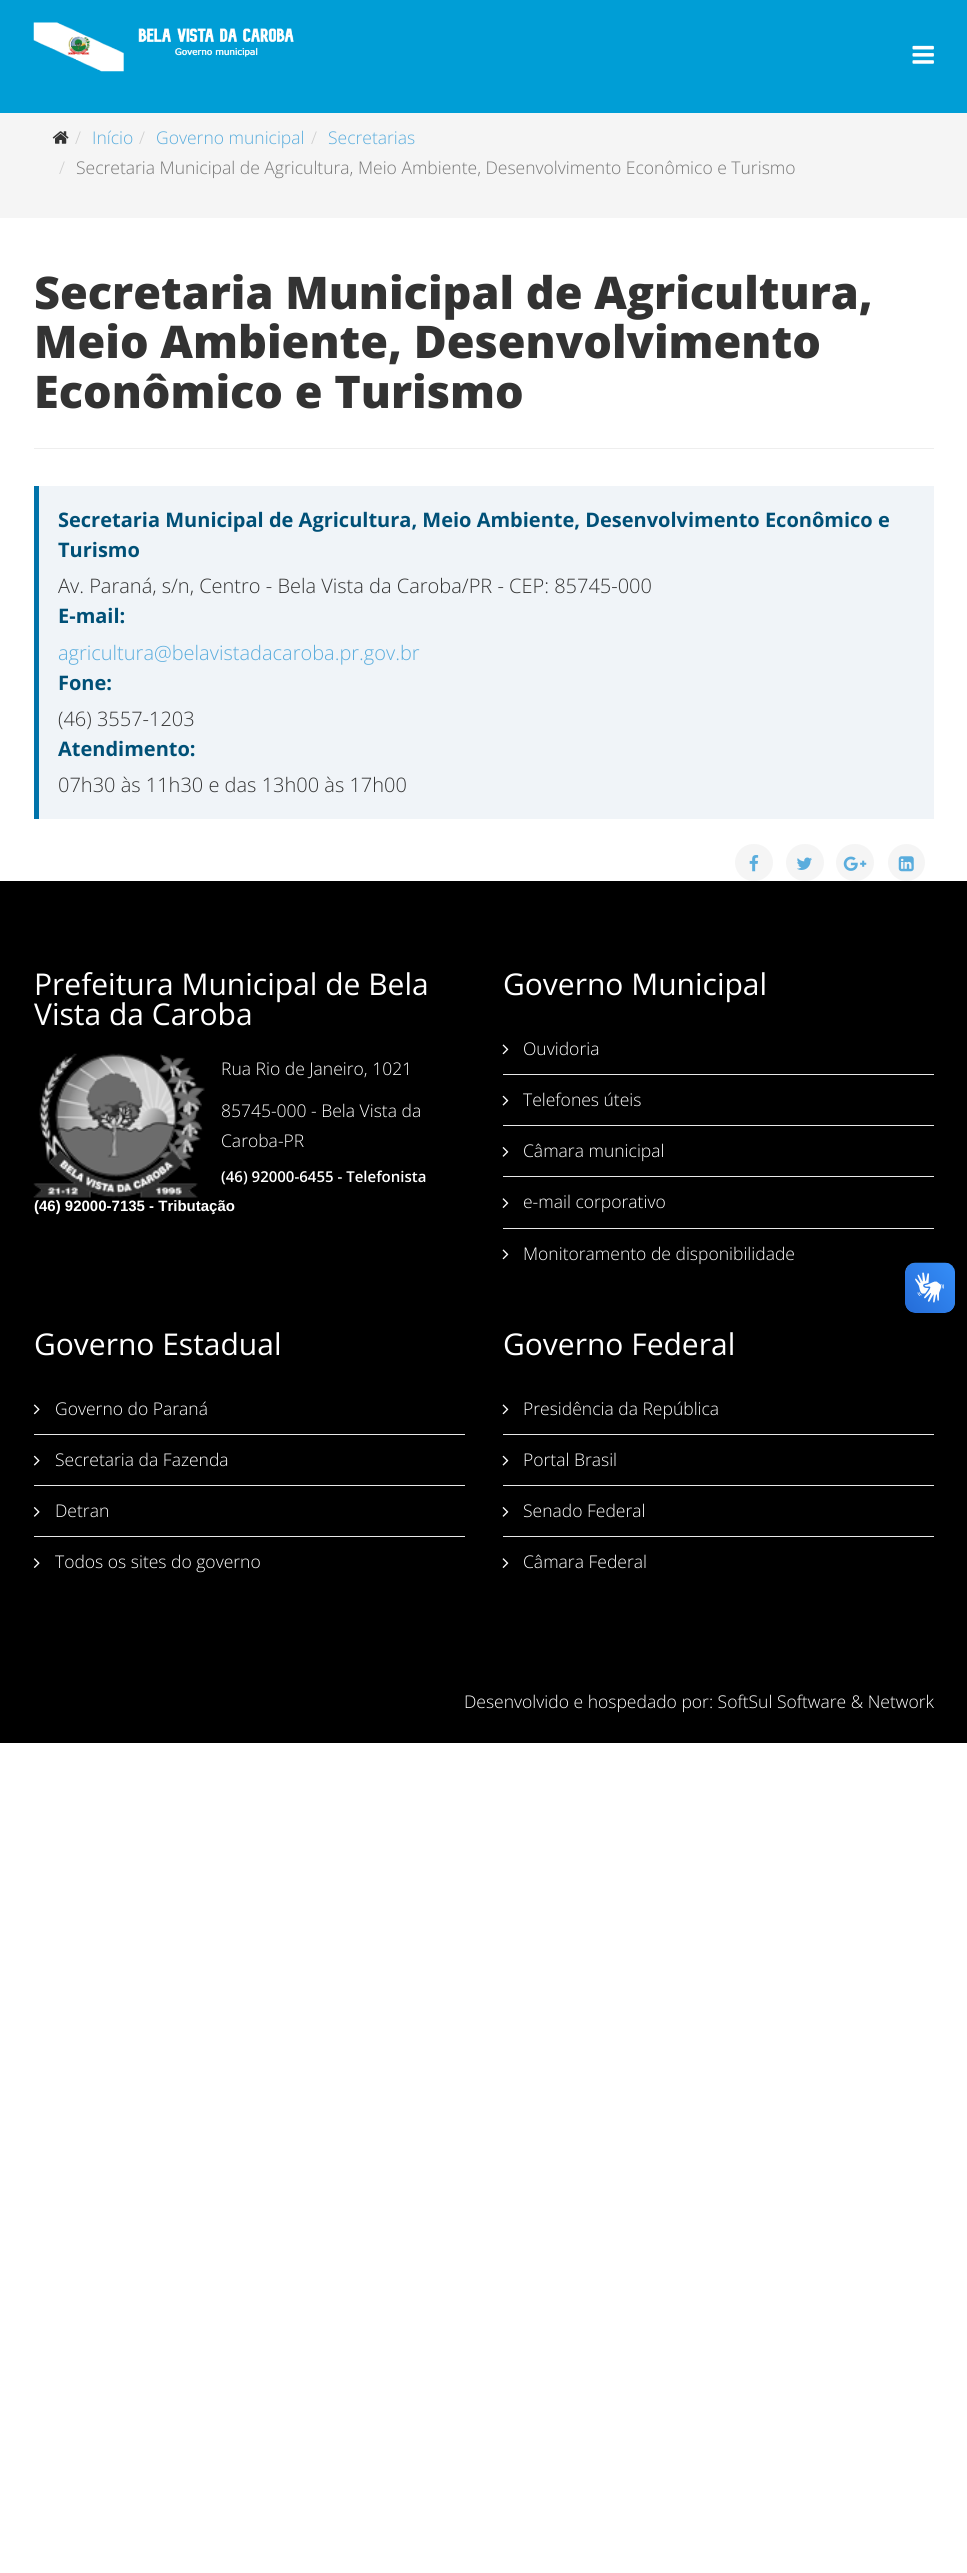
#include <cairo.h>
#include <math.h>
#include <stddef.h>

static cairo_t *ctx;

static void use_color(int r, int g, int b) {
    cairo_set_source_rgb(ctx, r / 255.0, g / 255.0, b / 255.0);
}

static void round_rect(double x, double y, double w, double h, double r) {
    cairo_new_sub_path(ctx);
    cairo_arc(ctx, x + w - r, y + h - r, r, 0, M_PI / 2);
    cairo_arc(ctx, x + r, y + h - r, r, M_PI / 2, M_PI);
    cairo_arc(ctx, x + r, y + r, r, M_PI, 1.5 * M_PI);
    cairo_arc(ctx, x + w - r, y + r, r, 1.5 * M_PI, 2 * M_PI);
    cairo_close_path(ctx);
}

static void picture(const char *path, double x, double y, double w, double h) {
    cairo_surface_t *image = cairo_image_surface_create_from_png(path);
    cairo_save(ctx);
    cairo_set_source_surface(ctx, image, x, y);
    cairo_rectangle(ctx, x, y, w, h);
    cairo_fill(ctx);
    cairo_restore(ctx);
    cairo_surface_destroy(image);
}

int main(void) {
    cairo_surface_t *surface = cairo_image_surface_create(CAIRO_FORMAT_RGB24, 967, 2573);
    ctx = cairo_create(surface);
    cairo_font_options_t *options = cairo_font_options_create();
    cairo_font_options_set_hint_metrics(options, CAIRO_HINT_METRICS_OFF);
    cairo_font_options_set_hint_style(options, CAIRO_HINT_STYLE_NONE);
    cairo_set_font_options(ctx, options);
    cairo_set_miter_limit(ctx, 4);
    use_color(255, 255, 255);
    cairo_paint(ctx);
    use_color(0, 158, 214);
    cairo_rectangle(ctx, 0, 0, 967, 113);
    cairo_fill(ctx);
    picture("img1.png", 33, 22, 261, 50);
    picture("img2.png", 912, 45, 22, 19);
    use_color(245, 245, 245);
    cairo_rectangle(ctx, 0, 113, 967, 105);
    cairo_fill(ctx);
    picture("img3.png", 52, 131, 17, 13);
    cairo_select_font_face(ctx, "Open Sans Light", CAIRO_FONT_SLANT_NORMAL, CAIRO_FONT_WEIGHT_NORMAL);
    cairo_set_font_size(ctx, 17.5);
    use_color(204, 204, 204);
    cairo_move_to(ctx, 75, 144);
    cairo_show_text(ctx, "/");
    use_color(90, 173, 221);
    cairo_move_to(ctx, 92, 144);
    cairo_show_text(ctx, "Início");
    use_color(204, 204, 204);
    cairo_move_to(ctx, 139, 144);
    cairo_show_text(ctx, "/");
    use_color(90, 173, 221);
    cairo_move_to(ctx, 156, 144);
    cairo_show_text(ctx, "Governo municipal");
    use_color(204, 204, 204);
    cairo_move_to(ctx, 311, 144);
    cairo_show_text(ctx, "/");
    use_color(90, 173, 221);
    cairo_move_to(ctx, 328, 144);
    cairo_show_text(ctx, "Secretarias");
    use_color(204, 204, 204);
    cairo_move_to(ctx, 59, 174);
    cairo_show_text(ctx, "/");
    use_color(119, 119, 119);
    cairo_move_to(ctx, 76, 174);
    cairo_show_text(ctx, "Secretaria Municipal de Agricultura, Meio Ambiente, Desenvolvimento Econômico e Turismo");
    use_color(238, 238, 238);
    cairo_rectangle(ctx, 34, 448, 900, 1);
    cairo_fill(ctx);
    cairo_select_font_face(ctx, "Open Sans ExtraBold", CAIRO_FONT_SLANT_NORMAL, CAIRO_FONT_WEIGHT_NORMAL);
    cairo_set_font_size(ctx, 45);
    use_color(51, 51, 51);
    cairo_move_to(ctx, 34, 309);
    cairo_show_text(ctx, "Secretaria Municipal de Agricultura,");
    cairo_move_to(ctx, 34, 358);
    cairo_show_text(ctx, "Meio Ambiente, Desenvolvimento");
    cairo_move_to(ctx, 34, 408);
    cairo_show_text(ctx, "Econômico e Turismo");
    use_color(240, 244, 248);
    cairo_rectangle(ctx, 39, 486, 895, 333);
    cairo_fill(ctx);
    use_color(0, 115, 170);
    cairo_rectangle(ctx, 34, 486, 5, 333);
    cairo_fill(ctx);
    cairo_select_font_face(ctx, "Open Sans", CAIRO_FONT_SLANT_NORMAL, CAIRO_FONT_WEIGHT_BOLD);
    cairo_set_font_size(ctx, 20);
    use_color(0, 80, 119);
    cairo_move_to(ctx, 58, 527);
    cairo_show_text(ctx, "Secretaria Municipal de Agricultura, Meio Ambiente, Desenvolvimento Econômico e");
    cairo_move_to(ctx, 58, 557);
    cairo_show_text(ctx, "Turismo");
    cairo_select_font_face(ctx, "Open Sans Light", CAIRO_FONT_SLANT_NORMAL, CAIRO_FONT_WEIGHT_NORMAL);
    use_color(51, 51, 51);
    cairo_move_to(ctx, 58, 593);
    cairo_show_text(ctx, "Av. Paraná, s/n, Centro - Bela Vista da Caroba/PR - CEP: 85745-000");
    cairo_select_font_face(ctx, "Open Sans", CAIRO_FONT_SLANT_NORMAL, CAIRO_FONT_WEIGHT_BOLD);
    use_color(0, 80, 119);
    cairo_move_to(ctx, 58, 623);
    cairo_show_text(ctx, "E-mail:");
    cairo_select_font_face(ctx, "Open Sans Light", CAIRO_FONT_SLANT_NORMAL, CAIRO_FONT_WEIGHT_NORMAL);
    use_color(90, 173, 221);
    cairo_move_to(ctx, 58, 660);
    cairo_show_text(ctx, "agricultura@belavistadacaroba.pr.gov.br");
    cairo_select_font_face(ctx, "Open Sans", CAIRO_FONT_SLANT_NORMAL, CAIRO_FONT_WEIGHT_BOLD);
    use_color(0, 80, 119);
    cairo_move_to(ctx, 58, 690);
    cairo_show_text(ctx, "Fone:");
    cairo_select_font_face(ctx, "Open Sans Light", CAIRO_FONT_SLANT_NORMAL, CAIRO_FONT_WEIGHT_NORMAL);
    use_color(51, 51, 51);
    cairo_move_to(ctx, 58, 726);
    cairo_show_text(ctx, "(46) 3557-1203");
    cairo_select_font_face(ctx, "Open Sans", CAIRO_FONT_SLANT_NORMAL, CAIRO_FONT_WEIGHT_BOLD);
    use_color(0, 80, 119);
    cairo_move_to(ctx, 58, 756);
    cairo_show_text(ctx, "Atendimento:");
    cairo_select_font_face(ctx, "Open Sans Light", CAIRO_FONT_SLANT_NORMAL, CAIRO_FONT_WEIGHT_NORMAL);
    use_color(51, 51, 51);
    cairo_move_to(ctx, 58, 792);
    cairo_show_text(ctx, "07h30 às 11h30 e das 13h00 às 17h00");
    use_color(245, 245, 245);
    round_rect(735, 844, 38, 37, 18.5);
    cairo_fill(ctx);
    picture("img4.png", 749, 855, 10, 17);
    round_rect(786, 844, 38, 37, 18.5);
    cairo_fill(ctx);
    picture("img5.png", 797, 857, 15, 13);
    round_rect(836, 844, 38, 37, 18.5);
    cairo_fill(ctx);
    picture("img6.png", 843, 856, 24, 15);
    cairo_arc(ctx, 906.5, 862.5, 18.5, 0, 2 * M_PI);
    cairo_fill(ctx);
    picture("img7.png", 898, 856, 16, 16);
    use_color(0, 0, 0);
    cairo_rectangle(ctx, 0, 881, 967, 862);
    cairo_fill(ctx);
    cairo_select_font_face(ctx, "Open Sans", CAIRO_FONT_SLANT_NORMAL, CAIRO_FONT_WEIGHT_NORMAL);
    cairo_set_font_size(ctx, 30);
    use_color(255, 255, 255);
    cairo_move_to(ctx, 34, 995);
    cairo_show_text(ctx, "Prefeitura Municipal de Bela");
    cairo_move_to(ctx, 34, 1025);
    cairo_show_text(ctx, "Vista da Caroba");
    picture("img8.png", 33, 1053, 172, 145);
    cairo_select_font_face(ctx, "Open Sans Light", CAIRO_FONT_SLANT_NORMAL, CAIRO_FONT_WEIGHT_NORMAL);
    cairo_set_font_size(ctx, 17.5);
    cairo_move_to(ctx, 221, 1075);
    cairo_show_text(ctx, "Rua Rio de Janeiro, 1021");
    cairo_move_to(ctx, 221, 1117);
    cairo_show_text(ctx, "85745-000 - Bela Vista da");
    cairo_move_to(ctx, 221, 1147);
    cairo_show_text(ctx, "Caroba-PR");
    cairo_select_font_face(ctx, "Open Sans SemiBold", CAIRO_FONT_SLANT_NORMAL, CAIRO_FONT_WEIGHT_NORMAL);
    cairo_set_font_size(ctx, 15);
    cairo_move_to(ctx, 221, 1182);
    cairo_show_text(ctx, "(46) 92000-6455 - Telefonista");
    cairo_select_font_face(ctx, "Liberation Sans", CAIRO_FONT_SLANT_NORMAL, CAIRO_FONT_WEIGHT_BOLD);
    cairo_move_to(ctx, 34, 1211);
    cairo_show_text(ctx, "(46) 92000-7135 - Tributação");
    cairo_select_font_face(ctx, "Open Sans", CAIRO_FONT_SLANT_NORMAL, CAIRO_FONT_WEIGHT_NORMAL);
    cairo_set_font_size(ctx, 30);
    cairo_move_to(ctx, 503, 995);
    cairo_show_text(ctx, "Governo Municipal");
    use_color(232, 232, 232);
    cairo_rectangle(ctx, 503, 1074, 431, 1);
    cairo_fill(ctx);
    picture("img9.png", 502, 1044, 7, 11);
    cairo_select_font_face(ctx, "Open Sans Light", CAIRO_FONT_SLANT_NORMAL, CAIRO_FONT_WEIGHT_NORMAL);
    cairo_set_font_size(ctx, 17.5);
    use_color(255, 255, 255);
    cairo_move_to(ctx, 523, 1055);
    cairo_show_text(ctx, "Ouvidoria");
    use_color(232, 232, 232);
    cairo_rectangle(ctx, 503, 1125, 431, 1);
    cairo_fill(ctx);
    picture("img10.png", 502, 1095, 7, 11);
    use_color(255, 255, 255);
    cairo_move_to(ctx, 523, 1106);
    cairo_show_text(ctx, "Telefones úteis");
    use_color(232, 232, 232);
    cairo_rectangle(ctx, 503, 1176, 431, 1);
    cairo_fill(ctx);
    picture("img11.png", 502, 1147, 7, 10);
    use_color(255, 255, 255);
    cairo_move_to(ctx, 523, 1157);
    cairo_show_text(ctx, "Câmara municipal");
    use_color(232, 232, 232);
    cairo_rectangle(ctx, 503, 1228, 431, 1);
    cairo_fill(ctx);
    picture("img12.png", 502, 1198, 7, 10);
    use_color(255, 255, 255);
    cairo_move_to(ctx, 523, 1208);
    cairo_show_text(ctx, "e-mail corporativo");
    picture("img9.png", 502, 1249, 7, 11);
    cairo_move_to(ctx, 523, 1260);
    cairo_show_text(ctx, "Monitoramento de disponibilidade");
    cairo_select_font_face(ctx, "Open Sans", CAIRO_FONT_SLANT_NORMAL, CAIRO_FONT_WEIGHT_NORMAL);
    cairo_set_font_size(ctx, 30);
    cairo_move_to(ctx, 34, 1355);
    cairo_show_text(ctx, "Governo Estadual");
    use_color(232, 232, 232);
    cairo_rectangle(ctx, 34, 1434, 431, 1);
    cairo_fill(ctx);
    picture("img13.png", 33, 1404, 7, 11);
    cairo_select_font_face(ctx, "Open Sans Light", CAIRO_FONT_SLANT_NORMAL, CAIRO_FONT_WEIGHT_NORMAL);
    cairo_set_font_size(ctx, 17.5);
    use_color(255, 255, 255);
    cairo_move_to(ctx, 55, 1415);
    cairo_show_text(ctx, "Governo do Paraná");
    use_color(232, 232, 232);
    cairo_rectangle(ctx, 34, 1485, 431, 1);
    cairo_fill(ctx);
    picture("img14.png", 33, 1455, 7, 11);
    use_color(255, 255, 255);
    cairo_move_to(ctx, 55, 1466);
    cairo_show_text(ctx, "Secretaria da Fazenda");
    use_color(232, 232, 232);
    cairo_rectangle(ctx, 34, 1536, 431, 1);
    cairo_fill(ctx);
    picture("img15.png", 33, 1507, 7, 10);
    use_color(255, 255, 255);
    cairo_move_to(ctx, 55, 1517);
    cairo_show_text(ctx, "Detran");
    picture("img16.png", 33, 1558, 7, 10);
    cairo_move_to(ctx, 55, 1568);
    cairo_show_text(ctx, "Todos os sites do governo");
    cairo_select_font_face(ctx, "Open Sans", CAIRO_FONT_SLANT_NORMAL, CAIRO_FONT_WEIGHT_NORMAL);
    cairo_set_font_size(ctx, 30);
    cairo_move_to(ctx, 503, 1355);
    cairo_show_text(ctx, "Governo Federal");
    use_color(232, 232, 232);
    cairo_rectangle(ctx, 503, 1434, 431, 1);
    cairo_fill(ctx);
    picture("img9.png", 502, 1404, 7, 11);
    cairo_select_font_face(ctx, "Open Sans Light", CAIRO_FONT_SLANT_NORMAL, CAIRO_FONT_WEIGHT_NORMAL);
    cairo_set_font_size(ctx, 17.5);
    use_color(255, 255, 255);
    cairo_move_to(ctx, 523, 1415);
    cairo_show_text(ctx, "Presidência da República");
    use_color(232, 232, 232);
    cairo_rectangle(ctx, 503, 1485, 431, 1);
    cairo_fill(ctx);
    picture("img10.png", 502, 1455, 7, 11);
    use_color(255, 255, 255);
    cairo_move_to(ctx, 523, 1466);
    cairo_show_text(ctx, "Portal Brasil");
    use_color(232, 232, 232);
    cairo_rectangle(ctx, 503, 1536, 431, 1);
    cairo_fill(ctx);
    picture("img11.png", 502, 1507, 7, 10);
    use_color(255, 255, 255);
    cairo_move_to(ctx, 523, 1517);
    cairo_show_text(ctx, "Senado Federal");
    picture("img12.png", 502, 1558, 7, 10);
    cairo_move_to(ctx, 523, 1568);
    cairo_show_text(ctx, "Câmara Federal");
    cairo_move_to(ctx, 464, 1708);
    cairo_show_text(ctx, "Desenvolvido e hospedado por: SoftSul Software & Network");
    picture("img17.png", 905, 1262, 50, 51);
    picture("img18.png", 905, 1263, 50, 50);
    cairo_surface_write_to_png(surface, "result.png");
    cairo_font_options_destroy(options);
    cairo_destroy(ctx);
    cairo_surface_destroy(surface);
    return 0;
}
